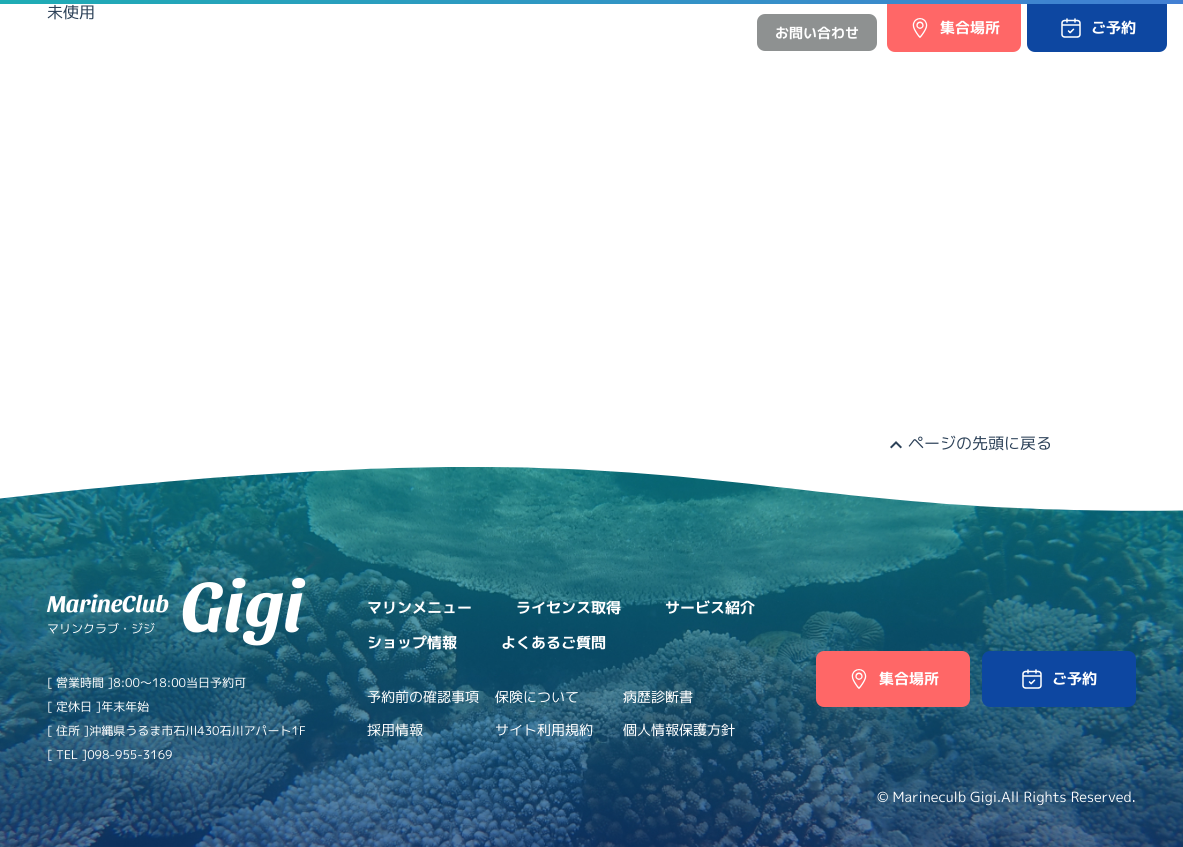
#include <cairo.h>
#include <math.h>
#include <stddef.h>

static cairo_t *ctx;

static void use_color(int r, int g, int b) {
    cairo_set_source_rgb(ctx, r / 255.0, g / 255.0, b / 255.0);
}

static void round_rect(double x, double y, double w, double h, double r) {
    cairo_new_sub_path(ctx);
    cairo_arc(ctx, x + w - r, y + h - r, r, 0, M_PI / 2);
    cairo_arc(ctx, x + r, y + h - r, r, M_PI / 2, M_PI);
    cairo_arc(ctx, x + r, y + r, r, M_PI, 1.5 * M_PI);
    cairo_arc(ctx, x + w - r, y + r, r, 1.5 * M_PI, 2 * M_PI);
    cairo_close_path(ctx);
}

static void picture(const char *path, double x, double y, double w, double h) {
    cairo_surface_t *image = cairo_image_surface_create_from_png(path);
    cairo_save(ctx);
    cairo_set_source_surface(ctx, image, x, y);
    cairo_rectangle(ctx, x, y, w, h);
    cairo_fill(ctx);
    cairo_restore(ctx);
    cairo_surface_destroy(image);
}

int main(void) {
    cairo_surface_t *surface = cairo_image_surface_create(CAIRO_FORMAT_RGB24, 1183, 847);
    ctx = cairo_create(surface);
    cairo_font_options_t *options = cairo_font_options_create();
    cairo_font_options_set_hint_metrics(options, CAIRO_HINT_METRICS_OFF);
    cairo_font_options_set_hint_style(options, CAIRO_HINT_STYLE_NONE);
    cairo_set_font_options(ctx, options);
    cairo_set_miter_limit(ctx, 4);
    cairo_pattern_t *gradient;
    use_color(255, 255, 255);
    cairo_paint(ctx);
    cairo_select_font_face(ctx, "M PLUS 1p", CAIRO_FONT_SLANT_NORMAL, CAIRO_FONT_WEIGHT_NORMAL);
    cairo_set_font_size(ctx, 16);
    use_color(44, 65, 88);
    cairo_move_to(ctx, 47, 18);
    cairo_show_text(ctx, "未使用");
    gradient = cairo_pattern_create_linear(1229, 100, 13, -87);
    cairo_pattern_add_color_stop_rgba(gradient, 0, 0.267, 0.49, 0.835, 1);
    cairo_pattern_add_color_stop_rgba(gradient, 1, 0.118, 0.675, 0.706, 1);
    cairo_set_source(ctx, gradient);
    cairo_pattern_destroy(gradient);
    cairo_rectangle(ctx, 0, 0, 1183, 4);
    cairo_fill(ctx);
    use_color(142, 145, 145);
    round_rect(757, 14, 120, 37, 8);
    cairo_fill(ctx);
    cairo_select_font_face(ctx, "M PLUS 1p", CAIRO_FONT_SLANT_NORMAL, CAIRO_FONT_WEIGHT_BOLD);
    cairo_set_font_size(ctx, 14);
    use_color(255, 255, 255);
    cairo_move_to(ctx, 775, 38);
    cairo_show_text(ctx, "お問い合わせ");
    use_color(255, 103, 103);
    cairo_new_path(ctx);
    cairo_move_to(ctx, 887, 4);
    cairo_line_to(ctx, 1021, 4);
    cairo_line_to(ctx, 1021, 44);
    cairo_curve_to(ctx, 1021, 48.5, 1017.5, 52, 1013, 52);
    cairo_line_to(ctx, 895, 52);
    cairo_curve_to(ctx, 890.5, 52, 887, 48.5, 887, 44);
    cairo_close_path(ctx);
    cairo_fill(ctx);
    picture("img1.png", 912, 18, 16, 20);
    cairo_set_font_size(ctx, 15);
    use_color(255, 255, 255);
    cairo_move_to(ctx, 940, 33);
    cairo_show_text(ctx, "集合場所");
    use_color(13, 71, 161);
    cairo_new_path(ctx);
    cairo_move_to(ctx, 1027, 4);
    cairo_line_to(ctx, 1167, 4);
    cairo_line_to(ctx, 1167, 44);
    cairo_curve_to(ctx, 1167, 48.5, 1163.5, 52, 1159, 52);
    cairo_line_to(ctx, 1035, 52);
    cairo_curve_to(ctx, 1030.5, 52, 1027, 48.5, 1027, 44);
    cairo_close_path(ctx);
    cairo_fill(ctx);
    picture("img2.png", 1061, 18, 20, 20);
    use_color(255, 255, 255);
    cairo_move_to(ctx, 1091, 33);
    cairo_show_text(ctx, "ご予約");
    picture("img3.png", 0, 467, 1183, 380);
    picture("img4.png", 890, 441, 12, 8);
    cairo_select_font_face(ctx, "M PLUS 1p", CAIRO_FONT_SLANT_NORMAL, CAIRO_FONT_WEIGHT_NORMAL);
    cairo_set_font_size(ctx, 16);
    use_color(44, 65, 88);
    cairo_move_to(ctx, 908, 449);
    cairo_show_text(ctx, "ページの先頭に戻る");
    cairo_select_font_face(ctx, "Sansita", CAIRO_FONT_SLANT_ITALIC, CAIRO_FONT_WEIGHT_BOLD);
    cairo_set_font_size(ctx, 24);
    use_color(255, 255, 255);
    cairo_move_to(ctx, 47, 612);
    cairo_show_text(ctx, "MarineClub");
    cairo_select_font_face(ctx, "M PLUS 1p", CAIRO_FONT_SLANT_NORMAL, CAIRO_FONT_WEIGHT_NORMAL);
    cairo_set_font_size(ctx, 12);
    cairo_move_to(ctx, 47, 633);
    cairo_show_text(ctx, "マリンクラブ・ジジ");
    cairo_select_font_face(ctx, "Sansita", CAIRO_FONT_SLANT_ITALIC, CAIRO_FONT_WEIGHT_BOLD);
    cairo_set_font_size(ctx, 72);
    cairo_move_to(ctx, 181, 631);
    cairo_show_text(ctx, "Gigi");
    cairo_select_font_face(ctx, "M PLUS 1p", CAIRO_FONT_SLANT_NORMAL, CAIRO_FONT_WEIGHT_NORMAL);
    cairo_set_font_size(ctx, 12);
    cairo_move_to(ctx, 47, 687);
    cairo_show_text(ctx, "[ 営業時間 ]8:00～18:00当日予約可");
    cairo_move_to(ctx, 47, 711);
    cairo_show_text(ctx, "[ 定休日 ]年末年始");
    cairo_move_to(ctx, 47, 735);
    cairo_show_text(ctx, "[ 住所 ]沖縄県うるま市石川430石川アパート1F");
    cairo_move_to(ctx, 47, 759);
    cairo_show_text(ctx, "[ TEL ]098-955-3169");
    cairo_select_font_face(ctx, "M PLUS 1p", CAIRO_FONT_SLANT_NORMAL, CAIRO_FONT_WEIGHT_BOLD);
    cairo_set_font_size(ctx, 15);
    cairo_move_to(ctx, 367, 613);
    cairo_show_text(ctx, "マリンメニュー");
    cairo_move_to(ctx, 516, 613);
    cairo_show_text(ctx, "ライセンス取得");
    cairo_move_to(ctx, 665, 613);
    cairo_show_text(ctx, "サービス紹介");
    cairo_move_to(ctx, 367, 648);
    cairo_show_text(ctx, "ショップ情報");
    cairo_move_to(ctx, 501, 648);
    cairo_show_text(ctx, "よくあるご質問");
    use_color(255, 103, 103);
    round_rect(816, 651, 154, 56, 8);
    cairo_fill(ctx);
    picture("img1.png", 851, 669, 16, 20);
    use_color(255, 255, 255);
    cairo_move_to(ctx, 879, 684);
    cairo_show_text(ctx, "集合場所");
    use_color(13, 71, 161);
    round_rect(982, 651, 154, 56, 8);
    cairo_fill(ctx);
    picture("img2.png", 1022, 669, 20, 20);
    use_color(255, 255, 255);
    cairo_move_to(ctx, 1052, 684);
    cairo_show_text(ctx, "ご予約");
    cairo_select_font_face(ctx, "M PLUS 1p", CAIRO_FONT_SLANT_NORMAL, CAIRO_FONT_WEIGHT_NORMAL);
    cairo_set_font_size(ctx, 14);
    cairo_move_to(ctx, 367, 702);
    cairo_show_text(ctx, "予約前の確認事項");
    cairo_move_to(ctx, 495, 702);
    cairo_show_text(ctx, "保険について");
    cairo_move_to(ctx, 623, 702);
    cairo_show_text(ctx, "病歴診断書");
    cairo_move_to(ctx, 367, 735);
    cairo_show_text(ctx, "採用情報");
    cairo_move_to(ctx, 495, 735);
    cairo_show_text(ctx, "サイト利用規約");
    cairo_move_to(ctx, 623, 735);
    cairo_show_text(ctx, "個人情報保護方針");
    cairo_move_to(ctx, 877, 802);
    cairo_show_text(ctx, "© Marineculb Gigi.All Rights Reserved.");
    cairo_surface_write_to_png(surface, "result.png");
    cairo_font_options_destroy(options);
    cairo_destroy(ctx);
    cairo_surface_destroy(surface);
    return 0;
}
